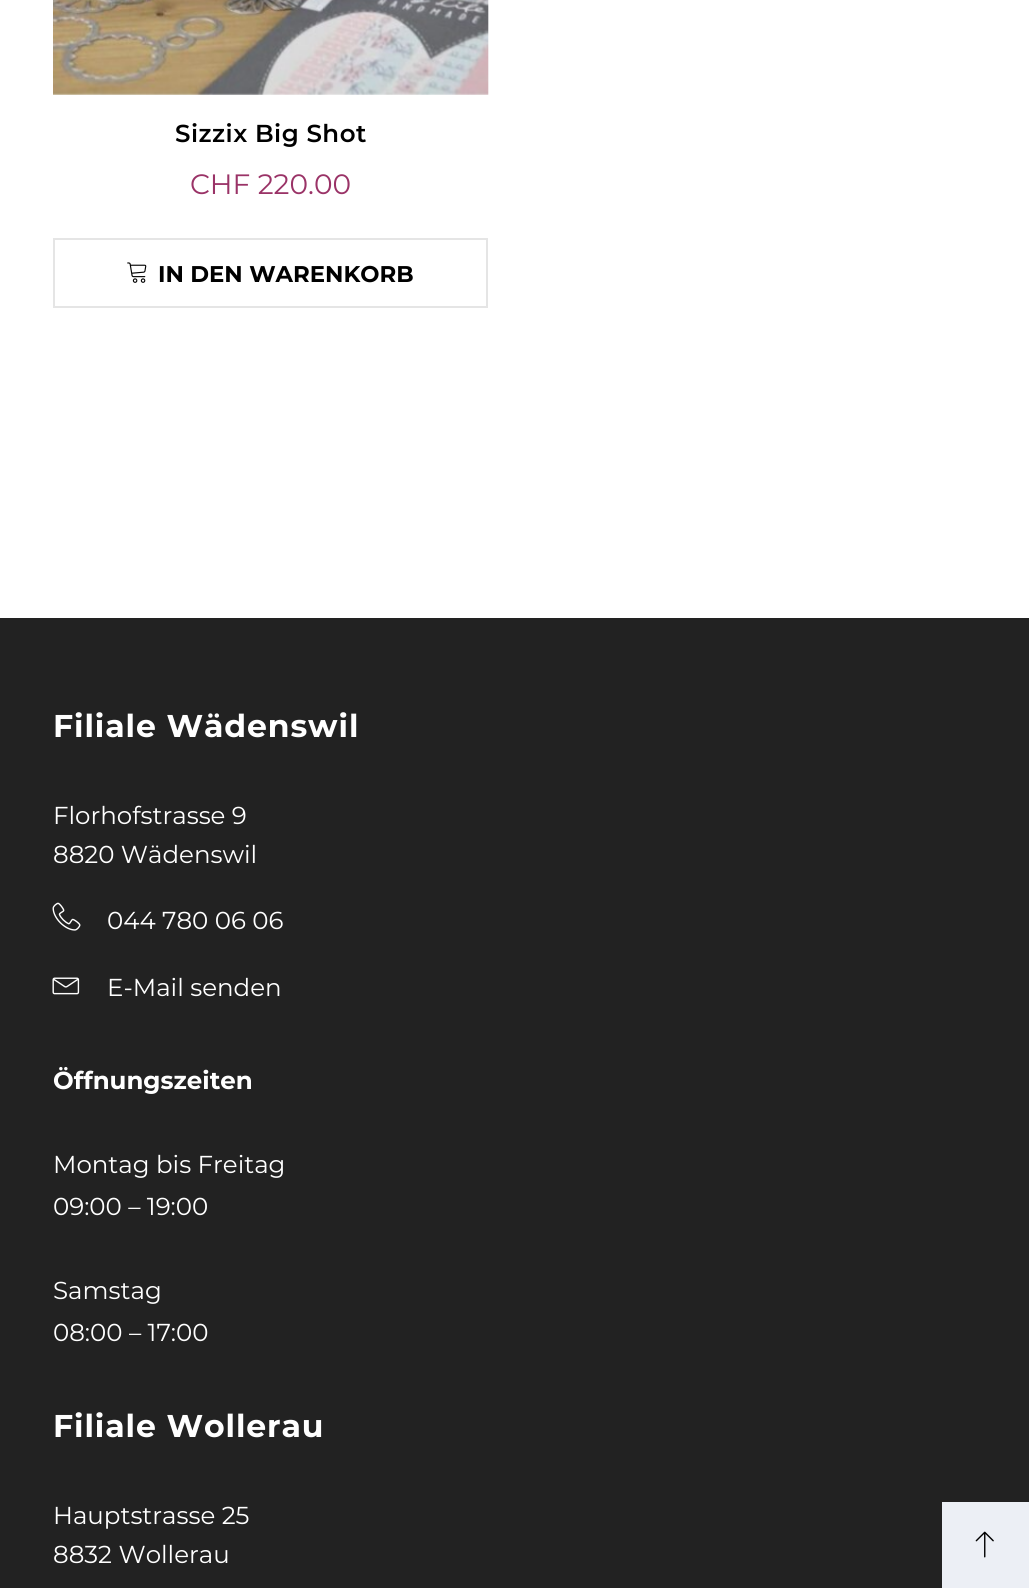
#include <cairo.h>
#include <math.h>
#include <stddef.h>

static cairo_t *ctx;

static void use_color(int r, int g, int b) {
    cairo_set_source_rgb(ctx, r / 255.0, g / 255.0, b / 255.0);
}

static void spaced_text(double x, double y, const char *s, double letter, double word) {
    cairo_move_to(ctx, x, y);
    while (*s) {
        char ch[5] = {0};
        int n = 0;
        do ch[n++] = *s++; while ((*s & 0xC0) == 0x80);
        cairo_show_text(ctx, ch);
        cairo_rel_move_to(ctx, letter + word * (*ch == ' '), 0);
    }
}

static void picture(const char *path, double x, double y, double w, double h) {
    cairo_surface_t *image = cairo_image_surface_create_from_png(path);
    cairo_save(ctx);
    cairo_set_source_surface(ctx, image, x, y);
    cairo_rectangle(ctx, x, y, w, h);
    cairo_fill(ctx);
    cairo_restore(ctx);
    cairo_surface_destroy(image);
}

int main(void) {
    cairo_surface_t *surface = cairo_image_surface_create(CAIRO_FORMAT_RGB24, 1029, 1588);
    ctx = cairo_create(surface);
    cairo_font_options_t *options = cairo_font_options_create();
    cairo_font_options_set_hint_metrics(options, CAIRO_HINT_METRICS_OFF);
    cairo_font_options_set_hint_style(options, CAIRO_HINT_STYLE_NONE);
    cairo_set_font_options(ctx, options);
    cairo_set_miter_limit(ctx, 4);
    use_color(255, 255, 255);
    cairo_paint(ctx);
    picture("img1.png", 53, 0, 436, 95);
    cairo_select_font_face(ctx, "Montserrat SemiBold", CAIRO_FONT_SLANT_NORMAL, CAIRO_FONT_WEIGHT_NORMAL);
    cairo_set_font_size(ctx, 24.5);
    use_color(0, 0, 0);
    spaced_text(175, 142, "Sizzix Big Shot", 0.5, 0);
    cairo_select_font_face(ctx, "Montserrat", CAIRO_FONT_SLANT_NORMAL, CAIRO_FONT_WEIGHT_NORMAL);
    cairo_set_font_size(ctx, 28);
    use_color(154, 51, 103);
    cairo_move_to(ctx, 190, 194);
    cairo_show_text(ctx, "CHF 220.00");
    cairo_rectangle(ctx, 54, 239, 433, 68);
    use_color(229, 229, 229);
    cairo_stroke(ctx);
    picture("img2.png", 127, 262, 20, 21);
    cairo_select_font_face(ctx, "Montserrat", CAIRO_FONT_SLANT_NORMAL, CAIRO_FONT_WEIGHT_BOLD);
    cairo_set_font_size(ctx, 22.75);
    use_color(0, 0, 0);
    cairo_move_to(ctx, 158, 282);
    cairo_show_text(ctx, "IN DEN WARENKORB");
    use_color(34, 34, 34);
    cairo_rectangle(ctx, 0, 618, 1029, 970);
    cairo_fill(ctx);
    cairo_set_font_size(ctx, 31.5);
    use_color(255, 255, 255);
    spaced_text(53, 737, "Filiale Wädenswil", 0.9, 0);
    cairo_select_font_face(ctx, "Montserrat", CAIRO_FONT_SLANT_NORMAL, CAIRO_FONT_WEIGHT_NORMAL);
    cairo_set_font_size(ctx, 24.5);
    cairo_move_to(ctx, 53, 824);
    cairo_show_text(ctx, "Florhofstrasse 9");
    cairo_move_to(ctx, 53, 863);
    cairo_show_text(ctx, "8820 Wädenswil");
    picture("img3.png", 52, 902, 29, 29);
    cairo_move_to(ctx, 107, 929);
    cairo_show_text(ctx, "044 780 06 06");
    picture("img4.png", 52, 977, 28, 18);
    cairo_move_to(ctx, 107, 996);
    cairo_show_text(ctx, "E-Mail senden");
    cairo_select_font_face(ctx, "Montserrat", CAIRO_FONT_SLANT_NORMAL, CAIRO_FONT_WEIGHT_BOLD);
    cairo_move_to(ctx, 53, 1089);
    cairo_show_text(ctx, "Öffnungszeiten");
    cairo_select_font_face(ctx, "Montserrat", CAIRO_FONT_SLANT_NORMAL, CAIRO_FONT_WEIGHT_NORMAL);
    cairo_move_to(ctx, 53, 1173);
    cairo_show_text(ctx, "Montag bis Freitag");
    cairo_move_to(ctx, 53, 1215);
    cairo_show_text(ctx, "09:00 – 19:00");
    cairo_move_to(ctx, 53, 1299);
    cairo_show_text(ctx, "Samstag");
    cairo_move_to(ctx, 53, 1341);
    cairo_show_text(ctx, "08:00 – 17:00");
    cairo_select_font_face(ctx, "Montserrat", CAIRO_FONT_SLANT_NORMAL, CAIRO_FONT_WEIGHT_BOLD);
    cairo_set_font_size(ctx, 31.5);
    spaced_text(53, 1437, "Filiale Wollerau", 0.9, 0);
    cairo_select_font_face(ctx, "Montserrat", CAIRO_FONT_SLANT_NORMAL, CAIRO_FONT_WEIGHT_NORMAL);
    cairo_set_font_size(ctx, 24.5);
    cairo_move_to(ctx, 53, 1524);
    cairo_show_text(ctx, "Hauptstrasse 25");
    cairo_move_to(ctx, 53, 1563);
    cairo_show_text(ctx, "8832 Wollerau");
    use_color(236, 239, 245);
    cairo_rectangle(ctx, 942, 1502, 87, 86);
    cairo_fill(ctx);
    picture("img5.png", 975, 1531, 19, 27);
    cairo_surface_write_to_png(surface, "result.png");
    cairo_font_options_destroy(options);
    cairo_destroy(ctx);
    cairo_surface_destroy(surface);
    return 0;
}
